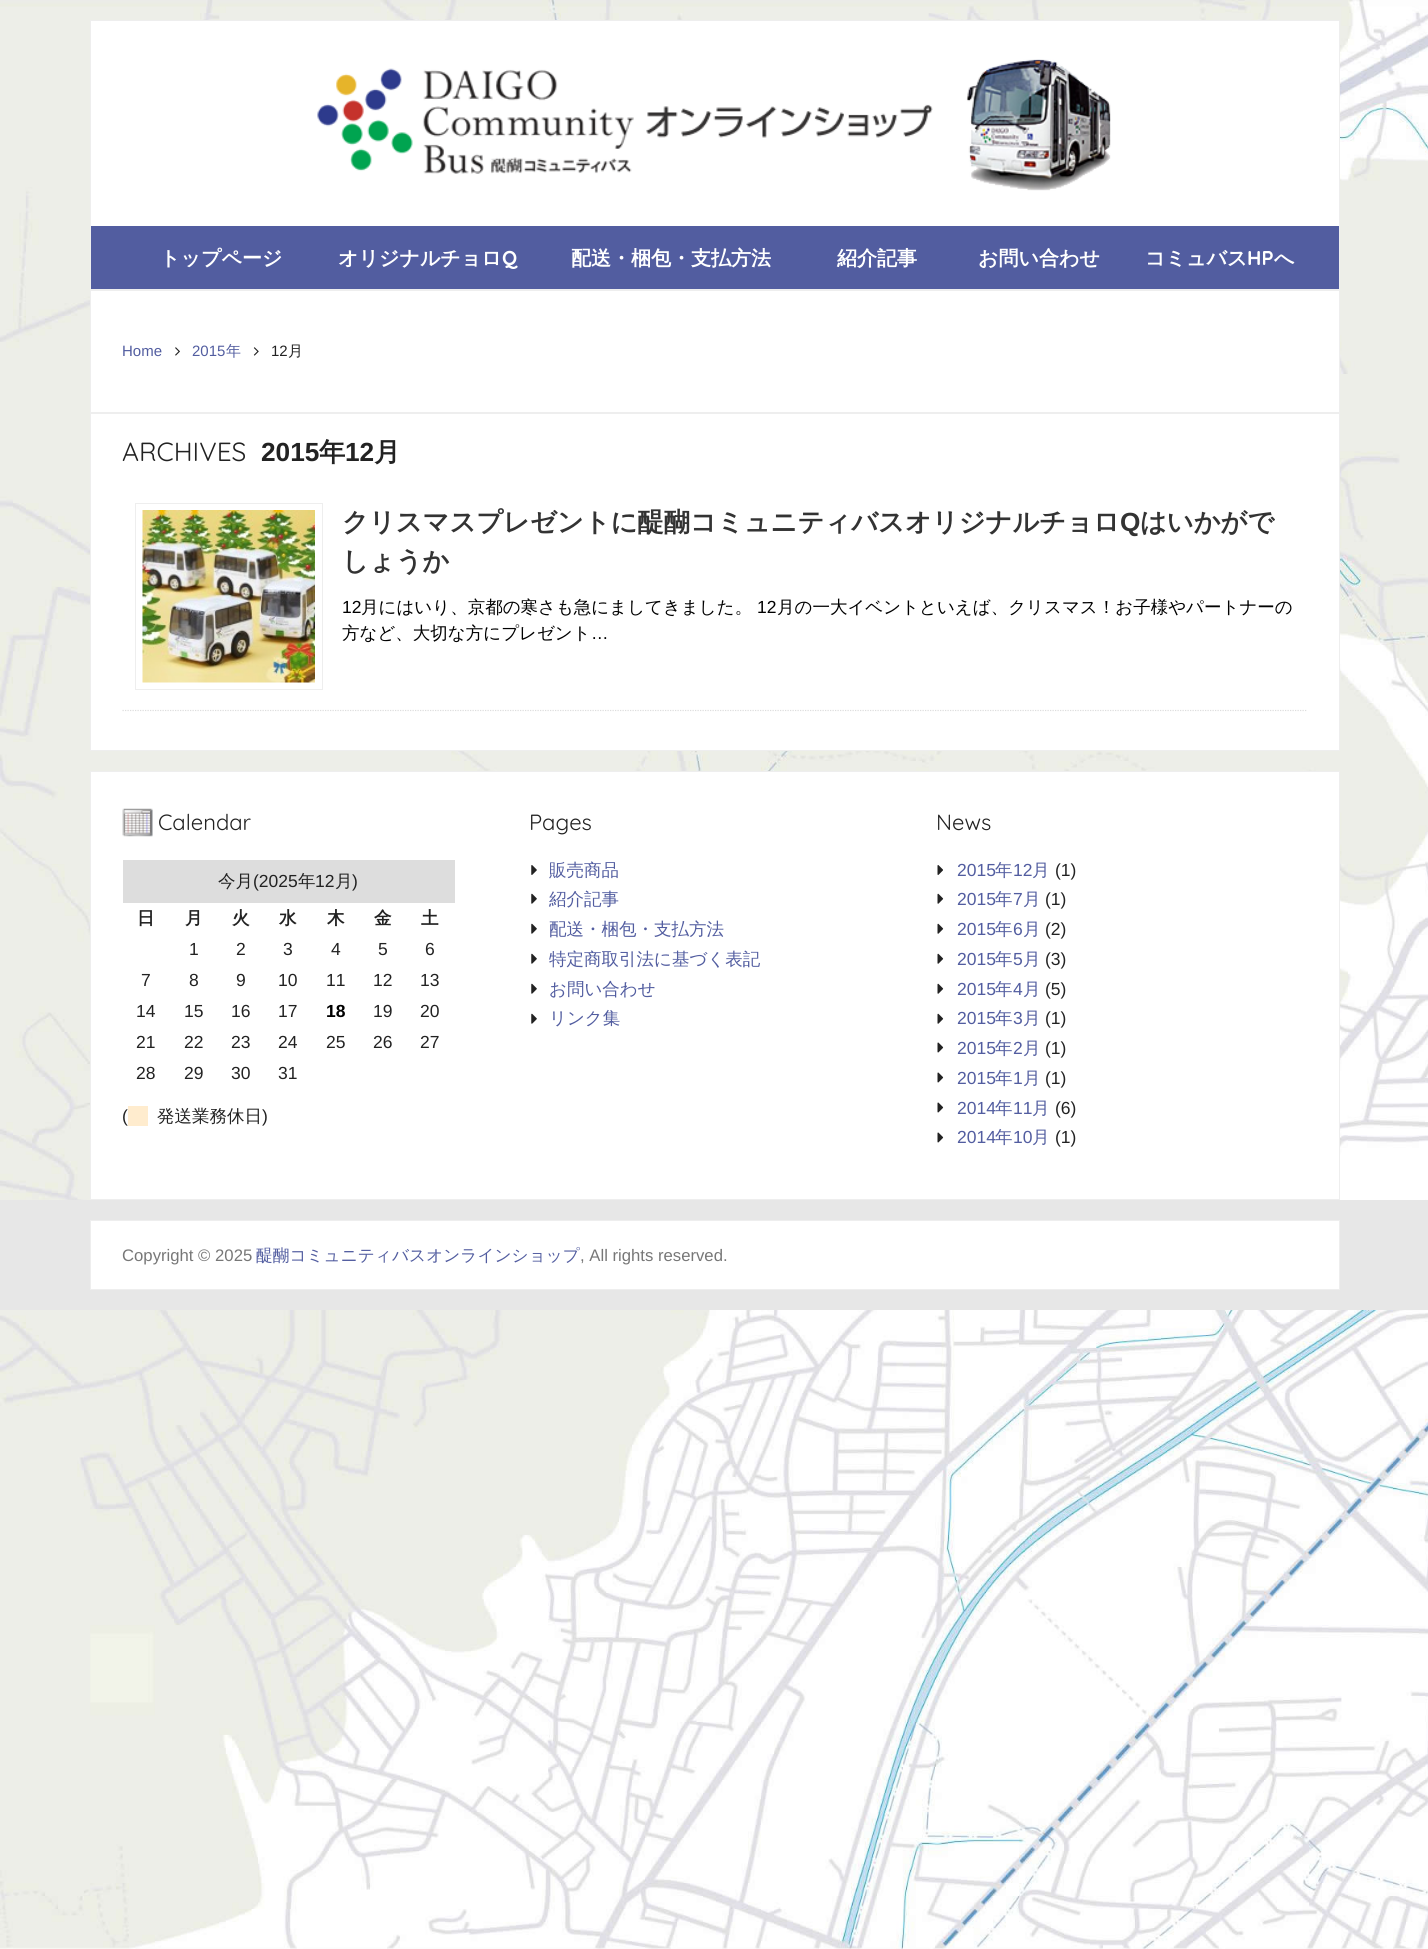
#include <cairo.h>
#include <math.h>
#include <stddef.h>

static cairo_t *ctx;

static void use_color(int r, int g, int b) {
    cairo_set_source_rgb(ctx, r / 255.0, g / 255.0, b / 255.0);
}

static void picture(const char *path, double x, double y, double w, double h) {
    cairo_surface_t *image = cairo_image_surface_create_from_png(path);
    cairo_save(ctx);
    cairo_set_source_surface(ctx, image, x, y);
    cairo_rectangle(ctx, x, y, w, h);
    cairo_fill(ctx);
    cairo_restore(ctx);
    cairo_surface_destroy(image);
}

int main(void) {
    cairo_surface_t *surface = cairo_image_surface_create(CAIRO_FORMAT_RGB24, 1428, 1949);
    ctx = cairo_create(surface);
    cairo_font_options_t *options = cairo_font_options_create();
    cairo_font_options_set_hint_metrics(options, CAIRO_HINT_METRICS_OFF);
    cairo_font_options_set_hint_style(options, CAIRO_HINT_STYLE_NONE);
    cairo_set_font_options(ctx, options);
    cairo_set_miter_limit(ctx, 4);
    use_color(255, 255, 255);
    cairo_paint(ctx);
    picture("img1.png", 0, 0, 1428, 1949);
    use_color(255, 255, 255);
    cairo_rectangle(ctx, 91, 21, 1248, 205);
    cairo_fill(ctx);
    cairo_rectangle(ctx, 90.5, 20.5, 1249, 269);
    use_color(238, 238, 238);
    cairo_set_line_width(ctx, 1);
    cairo_stroke(ctx);
    picture("img2.png", 317, 59, 794, 132);
    use_color(82, 93, 160);
    cairo_rectangle(ctx, 91, 226, 1248, 63);
    cairo_fill(ctx);
    cairo_select_font_face(ctx, "WenQuanYi Zen Hei", CAIRO_FONT_SLANT_NORMAL, CAIRO_FONT_WEIGHT_BOLD);
    cairo_set_font_size(ctx, 20);
    use_color(255, 255, 255);
    cairo_move_to(ctx, 160, 265);
    cairo_show_text(ctx, "トップページ");
    cairo_move_to(ctx, 338, 265);
    cairo_show_text(ctx, "オリジナルチョロ");
    cairo_select_font_face(ctx, "Quicksand", CAIRO_FONT_SLANT_NORMAL, CAIRO_FONT_WEIGHT_BOLD);
    cairo_move_to(ctx, 502, 265);
    cairo_show_text(ctx, "Q");
    cairo_select_font_face(ctx, "WenQuanYi Zen Hei", CAIRO_FONT_SLANT_NORMAL, CAIRO_FONT_WEIGHT_BOLD);
    cairo_move_to(ctx, 571, 265);
    cairo_show_text(ctx, "配送・梱包・支払方法");
    cairo_move_to(ctx, 837, 265);
    cairo_show_text(ctx, "紹介記事");
    cairo_move_to(ctx, 978, 265);
    cairo_show_text(ctx, "お問い合わせ");
    cairo_move_to(ctx, 1145, 265);
    cairo_show_text(ctx, "コミュバス");
    cairo_select_font_face(ctx, "Quicksand", CAIRO_FONT_SLANT_NORMAL, CAIRO_FONT_WEIGHT_BOLD);
    cairo_move_to(ctx, 1247, 265);
    cairo_show_text(ctx, "HP");
    cairo_select_font_face(ctx, "WenQuanYi Zen Hei", CAIRO_FONT_SLANT_NORMAL, CAIRO_FONT_WEIGHT_BOLD);
    cairo_move_to(ctx, 1274, 265);
    cairo_show_text(ctx, "へ");
    cairo_rectangle(ctx, 90.5, 290.5, 1249, 122);
    cairo_fill_preserve(ctx);
    use_color(238, 238, 238);
    cairo_stroke(ctx);
    cairo_select_font_face(ctx, "Liberation Sans", CAIRO_FONT_SLANT_NORMAL, CAIRO_FONT_WEIGHT_NORMAL);
    cairo_set_font_size(ctx, 15);
    use_color(82, 93, 160);
    cairo_move_to(ctx, 122, 356);
    cairo_show_text(ctx, "Home");
    picture("img3.png", 175, 347, 5, 9);
    cairo_move_to(ctx, 192, 356);
    cairo_show_text(ctx, "2015");
    cairo_select_font_face(ctx, "WenQuanYi Zen Hei Medium", CAIRO_FONT_SLANT_NORMAL, CAIRO_FONT_WEIGHT_NORMAL);
    cairo_move_to(ctx, 226, 356);
    cairo_show_text(ctx, "年");
    picture("img4.png", 253, 347, 6, 9);
    cairo_select_font_face(ctx, "Liberation Sans", CAIRO_FONT_SLANT_NORMAL, CAIRO_FONT_WEIGHT_NORMAL);
    use_color(34, 34, 34);
    cairo_move_to(ctx, 271, 356);
    cairo_show_text(ctx, "12");
    cairo_select_font_face(ctx, "WenQuanYi Zen Hei Medium", CAIRO_FONT_SLANT_NORMAL, CAIRO_FONT_WEIGHT_NORMAL);
    cairo_move_to(ctx, 288, 356);
    cairo_show_text(ctx, "月");
    use_color(255, 255, 255);
    cairo_rectangle(ctx, 90.5, 413.5, 1249, 337);
    cairo_fill_preserve(ctx);
    use_color(238, 238, 238);
    cairo_stroke(ctx);
    cairo_select_font_face(ctx, "Quicksand", CAIRO_FONT_SLANT_NORMAL, CAIRO_FONT_WEIGHT_NORMAL);
    cairo_set_font_size(ctx, 26.25);
    use_color(34, 34, 34);
    cairo_move_to(ctx, 122, 461);
    cairo_show_text(ctx, "ARCHIVES");
    cairo_select_font_face(ctx, "Liberation Sans", CAIRO_FONT_SLANT_NORMAL, CAIRO_FONT_WEIGHT_BOLD);
    cairo_move_to(ctx, 261, 461);
    cairo_show_text(ctx, "2015");
    cairo_select_font_face(ctx, "WenQuanYi Zen Hei", CAIRO_FONT_SLANT_NORMAL, CAIRO_FONT_WEIGHT_BOLD);
    cairo_move_to(ctx, 319, 461);
    cairo_show_text(ctx, "年");
    cairo_select_font_face(ctx, "Liberation Sans", CAIRO_FONT_SLANT_NORMAL, CAIRO_FONT_WEIGHT_BOLD);
    cairo_move_to(ctx, 345, 461);
    cairo_show_text(ctx, "12");
    cairo_select_font_face(ctx, "WenQuanYi Zen Hei", CAIRO_FONT_SLANT_NORMAL, CAIRO_FONT_WEIGHT_BOLD);
    cairo_move_to(ctx, 374, 461);
    cairo_show_text(ctx, "月");
    cairo_new_path(ctx);
    cairo_move_to(ctx, 122.5, 710.5);
    cairo_line_to(ctx, 1307.5, 710.5);
    use_color(221, 221, 221);
    cairo_set_line_width(ctx, 1.2);
    cairo_set_dash(ctx, (double[]){1.25, 1.25}, 2, 0);
    cairo_stroke(ctx);
    cairo_rectangle(ctx, 135.5, 503.5, 187, 186);
    use_color(238, 238, 238);
    cairo_set_line_width(ctx, 1);
    cairo_set_dash(ctx, NULL, 0, 0);
    cairo_stroke(ctx);
    picture("img5.png", 142, 510, 173, 173);
    use_color(51, 51, 51);
    cairo_move_to(ctx, 342, 531);
    cairo_show_text(ctx, "クリスマスプレゼントに醍醐コミュニティバスオリジナルチョロ");
    cairo_select_font_face(ctx, "Liberation Sans", CAIRO_FONT_SLANT_NORMAL, CAIRO_FONT_WEIGHT_BOLD);
    cairo_move_to(ctx, 1120, 531);
    cairo_show_text(ctx, "Q");
    cairo_select_font_face(ctx, "WenQuanYi Zen Hei", CAIRO_FONT_SLANT_NORMAL, CAIRO_FONT_WEIGHT_BOLD);
    cairo_move_to(ctx, 1140, 531);
    cairo_show_text(ctx, "はいかがで");
    cairo_move_to(ctx, 342, 570);
    cairo_show_text(ctx, "しょうか");
    cairo_select_font_face(ctx, "Liberation Sans", CAIRO_FONT_SLANT_NORMAL, CAIRO_FONT_WEIGHT_NORMAL);
    cairo_set_font_size(ctx, 17.5);
    use_color(0, 0, 0);
    cairo_move_to(ctx, 342, 613);
    cairo_show_text(ctx, "12");
    cairo_select_font_face(ctx, "WenQuanYi Zen Hei Medium", CAIRO_FONT_SLANT_NORMAL, CAIRO_FONT_WEIGHT_NORMAL);
    cairo_move_to(ctx, 361, 613);
    cairo_show_text(ctx, "月にはいり、京都の寒さも急にましてきました。");
    cairo_select_font_face(ctx, "Liberation Sans", CAIRO_FONT_SLANT_NORMAL, CAIRO_FONT_WEIGHT_NORMAL);
    cairo_move_to(ctx, 757, 613);
    cairo_show_text(ctx, "12");
    cairo_select_font_face(ctx, "WenQuanYi Zen Hei Medium", CAIRO_FONT_SLANT_NORMAL, CAIRO_FONT_WEIGHT_NORMAL);
    cairo_move_to(ctx, 777, 613);
    cairo_show_text(ctx, "月の一大イベントといえば、クリスマス！お子様やパートナーの");
    cairo_move_to(ctx, 342, 639);
    cairo_show_text(ctx, "方など、大切な方にプレゼント");
    cairo_select_font_face(ctx, "Liberation Sans", CAIRO_FONT_SLANT_NORMAL, CAIRO_FONT_WEIGHT_NORMAL);
    cairo_move_to(ctx, 591, 639);
    cairo_show_text(ctx, "…");
    use_color(255, 255, 255);
    cairo_rectangle(ctx, 90.5, 771.5, 1249, 428);
    cairo_fill_preserve(ctx);
    use_color(238, 238, 238);
    cairo_stroke(ctx);
    picture("img6.png", 122, 808, 31, 29);
    cairo_select_font_face(ctx, "Quicksand", CAIRO_FONT_SLANT_NORMAL, CAIRO_FONT_WEIGHT_NORMAL);
    cairo_set_font_size(ctx, 22);
    use_color(34, 34, 34);
    cairo_move_to(ctx, 158, 830);
    cairo_show_text(ctx, "Calendar");
    use_color(221, 221, 221);
    cairo_rectangle(ctx, 123, 860, 332, 43);
    cairo_fill(ctx);
    cairo_select_font_face(ctx, "WenQuanYi Zen Hei Medium", CAIRO_FONT_SLANT_NORMAL, CAIRO_FONT_WEIGHT_NORMAL);
    cairo_set_font_size(ctx, 17.5);
    use_color(34, 34, 34);
    cairo_move_to(ctx, 218, 887);
    cairo_show_text(ctx, "今月");
    cairo_select_font_face(ctx, "Liberation Sans", CAIRO_FONT_SLANT_NORMAL, CAIRO_FONT_WEIGHT_NORMAL);
    cairo_move_to(ctx, 253, 887);
    cairo_show_text(ctx, "(2025");
    cairo_select_font_face(ctx, "WenQuanYi Zen Hei Medium", CAIRO_FONT_SLANT_NORMAL, CAIRO_FONT_WEIGHT_NORMAL);
    cairo_move_to(ctx, 298, 887);
    cairo_show_text(ctx, "年");
    cairo_select_font_face(ctx, "Liberation Sans", CAIRO_FONT_SLANT_NORMAL, CAIRO_FONT_WEIGHT_NORMAL);
    cairo_move_to(ctx, 315, 887);
    cairo_show_text(ctx, "12");
    cairo_select_font_face(ctx, "WenQuanYi Zen Hei Medium", CAIRO_FONT_SLANT_NORMAL, CAIRO_FONT_WEIGHT_NORMAL);
    cairo_move_to(ctx, 335, 887);
    cairo_show_text(ctx, "月");
    cairo_select_font_face(ctx, "Liberation Sans", CAIRO_FONT_SLANT_NORMAL, CAIRO_FONT_WEIGHT_NORMAL);
    cairo_move_to(ctx, 352, 887);
    cairo_show_text(ctx, ")");
    cairo_select_font_face(ctx, "WenQuanYi Zen Hei", CAIRO_FONT_SLANT_NORMAL, CAIRO_FONT_WEIGHT_BOLD);
    cairo_move_to(ctx, 137, 924);
    cairo_show_text(ctx, "日");
    cairo_move_to(ctx, 185, 924);
    cairo_show_text(ctx, "月");
    cairo_move_to(ctx, 232, 924);
    cairo_show_text(ctx, "火");
    cairo_move_to(ctx, 279, 924);
    cairo_show_text(ctx, "水");
    cairo_move_to(ctx, 327, 924);
    cairo_show_text(ctx, "木");
    cairo_move_to(ctx, 374, 924);
    cairo_show_text(ctx, "金");
    cairo_move_to(ctx, 421, 924);
    cairo_show_text(ctx, "土");
    cairo_select_font_face(ctx, "Liberation Sans", CAIRO_FONT_SLANT_NORMAL, CAIRO_FONT_WEIGHT_NORMAL);
    cairo_move_to(ctx, 189, 955);
    cairo_show_text(ctx, "1");
    cairo_move_to(ctx, 236, 955);
    cairo_show_text(ctx, "2");
    cairo_move_to(ctx, 283, 955);
    cairo_show_text(ctx, "3");
    cairo_move_to(ctx, 331, 955);
    cairo_show_text(ctx, "4");
    cairo_move_to(ctx, 378, 955);
    cairo_show_text(ctx, "5");
    cairo_move_to(ctx, 425, 955);
    cairo_show_text(ctx, "6");
    cairo_move_to(ctx, 141, 986);
    cairo_show_text(ctx, "7");
    cairo_move_to(ctx, 189, 986);
    cairo_show_text(ctx, "8");
    cairo_move_to(ctx, 236, 986);
    cairo_show_text(ctx, "9");
    cairo_move_to(ctx, 278, 986);
    cairo_show_text(ctx, "10");
    cairo_move_to(ctx, 326, 986);
    cairo_show_text(ctx, "11");
    cairo_move_to(ctx, 373, 986);
    cairo_show_text(ctx, "12");
    cairo_move_to(ctx, 420, 986);
    cairo_show_text(ctx, "13");
    cairo_move_to(ctx, 136, 1017);
    cairo_show_text(ctx, "14");
    cairo_move_to(ctx, 184, 1017);
    cairo_show_text(ctx, "15");
    cairo_move_to(ctx, 231, 1017);
    cairo_show_text(ctx, "16");
    cairo_move_to(ctx, 278, 1017);
    cairo_show_text(ctx, "17");
    cairo_select_font_face(ctx, "Liberation Sans", CAIRO_FONT_SLANT_NORMAL, CAIRO_FONT_WEIGHT_BOLD);
    use_color(0, 0, 0);
    cairo_move_to(ctx, 326, 1017);
    cairo_show_text(ctx, "18");
    cairo_select_font_face(ctx, "Liberation Sans", CAIRO_FONT_SLANT_NORMAL, CAIRO_FONT_WEIGHT_NORMAL);
    use_color(34, 34, 34);
    cairo_move_to(ctx, 373, 1017);
    cairo_show_text(ctx, "19");
    cairo_move_to(ctx, 420, 1017);
    cairo_show_text(ctx, "20");
    cairo_move_to(ctx, 136, 1048);
    cairo_show_text(ctx, "21");
    cairo_move_to(ctx, 184, 1048);
    cairo_show_text(ctx, "22");
    cairo_move_to(ctx, 231, 1048);
    cairo_show_text(ctx, "23");
    cairo_move_to(ctx, 278, 1048);
    cairo_show_text(ctx, "24");
    cairo_move_to(ctx, 326, 1048);
    cairo_show_text(ctx, "25");
    cairo_move_to(ctx, 373, 1048);
    cairo_show_text(ctx, "26");
    cairo_move_to(ctx, 420, 1048);
    cairo_show_text(ctx, "27");
    cairo_move_to(ctx, 136, 1079);
    cairo_show_text(ctx, "28");
    cairo_move_to(ctx, 184, 1079);
    cairo_show_text(ctx, "29");
    cairo_move_to(ctx, 231, 1079);
    cairo_show_text(ctx, "30");
    cairo_move_to(ctx, 278, 1079);
    cairo_show_text(ctx, "31");
    cairo_move_to(ctx, 122, 1122);
    cairo_show_text(ctx, "(");
    use_color(255, 236, 206);
    cairo_rectangle(ctx, 128, 1106, 20, 20);
    cairo_fill(ctx);
    cairo_select_font_face(ctx, "WenQuanYi Zen Hei Medium", CAIRO_FONT_SLANT_NORMAL, CAIRO_FONT_WEIGHT_NORMAL);
    use_color(34, 34, 34);
    cairo_move_to(ctx, 157, 1122);
    cairo_show_text(ctx, "発送業務休日");
    cairo_select_font_face(ctx, "Liberation Sans", CAIRO_FONT_SLANT_NORMAL, CAIRO_FONT_WEIGHT_NORMAL);
    cairo_move_to(ctx, 262, 1122);
    cairo_show_text(ctx, ")");
    cairo_select_font_face(ctx, "Quicksand", CAIRO_FONT_SLANT_NORMAL, CAIRO_FONT_WEIGHT_NORMAL);
    cairo_set_font_size(ctx, 22);
    cairo_move_to(ctx, 529, 830);
    cairo_show_text(ctx, "Pages");
    picture("img7.png", 531, 865, 6, 10);
    cairo_select_font_face(ctx, "WenQuanYi Zen Hei Medium", CAIRO_FONT_SLANT_NORMAL, CAIRO_FONT_WEIGHT_NORMAL);
    cairo_set_font_size(ctx, 17.5);
    use_color(82, 93, 160);
    cairo_move_to(ctx, 549, 876);
    cairo_show_text(ctx, "販売商品");
    picture("img8.png", 531, 893, 6, 11);
    cairo_move_to(ctx, 549, 905);
    cairo_show_text(ctx, "紹介記事");
    picture("img8.png", 531, 923, 6, 11);
    cairo_move_to(ctx, 549, 935);
    cairo_show_text(ctx, "配送・梱包・支払方法");
    picture("img8.png", 531, 953, 6, 11);
    cairo_move_to(ctx, 549, 965);
    cairo_show_text(ctx, "特定商取引法に基づく表記");
    picture("img8.png", 531, 983, 6, 11);
    cairo_move_to(ctx, 549, 995);
    cairo_show_text(ctx, "お問い合わせ");
    picture("img8.png", 531, 1013, 6, 11);
    cairo_move_to(ctx, 549, 1024);
    cairo_show_text(ctx, "リンク集");
    cairo_select_font_face(ctx, "Quicksand", CAIRO_FONT_SLANT_NORMAL, CAIRO_FONT_WEIGHT_NORMAL);
    cairo_set_font_size(ctx, 22);
    use_color(34, 34, 34);
    cairo_move_to(ctx, 936, 830);
    cairo_show_text(ctx, "News");
    picture("img9.png", 937, 865, 6, 10);
    cairo_select_font_face(ctx, "Liberation Sans", CAIRO_FONT_SLANT_NORMAL, CAIRO_FONT_WEIGHT_NORMAL);
    cairo_set_font_size(ctx, 17.5);
    use_color(82, 93, 160);
    cairo_move_to(ctx, 957, 876);
    cairo_show_text(ctx, "2015");
    cairo_select_font_face(ctx, "WenQuanYi Zen Hei Medium", CAIRO_FONT_SLANT_NORMAL, CAIRO_FONT_WEIGHT_NORMAL);
    cairo_move_to(ctx, 995, 876);
    cairo_show_text(ctx, "年");
    cairo_select_font_face(ctx, "Liberation Sans", CAIRO_FONT_SLANT_NORMAL, CAIRO_FONT_WEIGHT_NORMAL);
    cairo_move_to(ctx, 1013, 876);
    cairo_show_text(ctx, "12");
    cairo_select_font_face(ctx, "WenQuanYi Zen Hei Medium", CAIRO_FONT_SLANT_NORMAL, CAIRO_FONT_WEIGHT_NORMAL);
    cairo_move_to(ctx, 1032, 876);
    cairo_show_text(ctx, "月");
    cairo_select_font_face(ctx, "Liberation Sans", CAIRO_FONT_SLANT_NORMAL, CAIRO_FONT_WEIGHT_NORMAL);
    use_color(34, 34, 34);
    cairo_move_to(ctx, 1055, 876);
    cairo_show_text(ctx, "(1)");
    picture("img10.png", 937, 893, 7, 11);
    use_color(82, 93, 160);
    cairo_move_to(ctx, 957, 905);
    cairo_show_text(ctx, "2015");
    cairo_select_font_face(ctx, "WenQuanYi Zen Hei Medium", CAIRO_FONT_SLANT_NORMAL, CAIRO_FONT_WEIGHT_NORMAL);
    cairo_move_to(ctx, 995, 905);
    cairo_show_text(ctx, "年");
    cairo_select_font_face(ctx, "Liberation Sans", CAIRO_FONT_SLANT_NORMAL, CAIRO_FONT_WEIGHT_NORMAL);
    cairo_move_to(ctx, 1013, 905);
    cairo_show_text(ctx, "7");
    cairo_select_font_face(ctx, "WenQuanYi Zen Hei Medium", CAIRO_FONT_SLANT_NORMAL, CAIRO_FONT_WEIGHT_NORMAL);
    cairo_move_to(ctx, 1023, 905);
    cairo_show_text(ctx, "月");
    cairo_select_font_face(ctx, "Liberation Sans", CAIRO_FONT_SLANT_NORMAL, CAIRO_FONT_WEIGHT_NORMAL);
    use_color(34, 34, 34);
    cairo_move_to(ctx, 1045, 905);
    cairo_show_text(ctx, "(1)");
    picture("img10.png", 937, 923, 7, 11);
    use_color(82, 93, 160);
    cairo_move_to(ctx, 957, 935);
    cairo_show_text(ctx, "2015");
    cairo_select_font_face(ctx, "WenQuanYi Zen Hei Medium", CAIRO_FONT_SLANT_NORMAL, CAIRO_FONT_WEIGHT_NORMAL);
    cairo_move_to(ctx, 995, 935);
    cairo_show_text(ctx, "年");
    cairo_select_font_face(ctx, "Liberation Sans", CAIRO_FONT_SLANT_NORMAL, CAIRO_FONT_WEIGHT_NORMAL);
    cairo_move_to(ctx, 1013, 935);
    cairo_show_text(ctx, "6");
    cairo_select_font_face(ctx, "WenQuanYi Zen Hei Medium", CAIRO_FONT_SLANT_NORMAL, CAIRO_FONT_WEIGHT_NORMAL);
    cairo_move_to(ctx, 1023, 935);
    cairo_show_text(ctx, "月");
    cairo_select_font_face(ctx, "Liberation Sans", CAIRO_FONT_SLANT_NORMAL, CAIRO_FONT_WEIGHT_NORMAL);
    use_color(34, 34, 34);
    cairo_move_to(ctx, 1045, 935);
    cairo_show_text(ctx, "(2)");
    picture("img10.png", 937, 953, 7, 11);
    use_color(82, 93, 160);
    cairo_move_to(ctx, 957, 965);
    cairo_show_text(ctx, "2015");
    cairo_select_font_face(ctx, "WenQuanYi Zen Hei Medium", CAIRO_FONT_SLANT_NORMAL, CAIRO_FONT_WEIGHT_NORMAL);
    cairo_move_to(ctx, 995, 965);
    cairo_show_text(ctx, "年");
    cairo_select_font_face(ctx, "Liberation Sans", CAIRO_FONT_SLANT_NORMAL, CAIRO_FONT_WEIGHT_NORMAL);
    cairo_move_to(ctx, 1013, 965);
    cairo_show_text(ctx, "5");
    cairo_select_font_face(ctx, "WenQuanYi Zen Hei Medium", CAIRO_FONT_SLANT_NORMAL, CAIRO_FONT_WEIGHT_NORMAL);
    cairo_move_to(ctx, 1023, 965);
    cairo_show_text(ctx, "月");
    cairo_select_font_face(ctx, "Liberation Sans", CAIRO_FONT_SLANT_NORMAL, CAIRO_FONT_WEIGHT_NORMAL);
    use_color(34, 34, 34);
    cairo_move_to(ctx, 1045, 965);
    cairo_show_text(ctx, "(3)");
    picture("img10.png", 937, 983, 7, 11);
    use_color(82, 93, 160);
    cairo_move_to(ctx, 957, 995);
    cairo_show_text(ctx, "2015");
    cairo_select_font_face(ctx, "WenQuanYi Zen Hei Medium", CAIRO_FONT_SLANT_NORMAL, CAIRO_FONT_WEIGHT_NORMAL);
    cairo_move_to(ctx, 995, 995);
    cairo_show_text(ctx, "年");
    cairo_select_font_face(ctx, "Liberation Sans", CAIRO_FONT_SLANT_NORMAL, CAIRO_FONT_WEIGHT_NORMAL);
    cairo_move_to(ctx, 1013, 995);
    cairo_show_text(ctx, "4");
    cairo_select_font_face(ctx, "WenQuanYi Zen Hei Medium", CAIRO_FONT_SLANT_NORMAL, CAIRO_FONT_WEIGHT_NORMAL);
    cairo_move_to(ctx, 1023, 995);
    cairo_show_text(ctx, "月");
    cairo_select_font_face(ctx, "Liberation Sans", CAIRO_FONT_SLANT_NORMAL, CAIRO_FONT_WEIGHT_NORMAL);
    use_color(34, 34, 34);
    cairo_move_to(ctx, 1045, 995);
    cairo_show_text(ctx, "(5)");
    picture("img10.png", 937, 1013, 7, 11);
    use_color(82, 93, 160);
    cairo_move_to(ctx, 957, 1024);
    cairo_show_text(ctx, "2015");
    cairo_select_font_face(ctx, "WenQuanYi Zen Hei Medium", CAIRO_FONT_SLANT_NORMAL, CAIRO_FONT_WEIGHT_NORMAL);
    cairo_move_to(ctx, 995, 1024);
    cairo_show_text(ctx, "年");
    cairo_select_font_face(ctx, "Liberation Sans", CAIRO_FONT_SLANT_NORMAL, CAIRO_FONT_WEIGHT_NORMAL);
    cairo_move_to(ctx, 1013, 1024);
    cairo_show_text(ctx, "3");
    cairo_select_font_face(ctx, "WenQuanYi Zen Hei Medium", CAIRO_FONT_SLANT_NORMAL, CAIRO_FONT_WEIGHT_NORMAL);
    cairo_move_to(ctx, 1023, 1024);
    cairo_show_text(ctx, "月");
    cairo_select_font_face(ctx, "Liberation Sans", CAIRO_FONT_SLANT_NORMAL, CAIRO_FONT_WEIGHT_NORMAL);
    use_color(34, 34, 34);
    cairo_move_to(ctx, 1045, 1024);
    cairo_show_text(ctx, "(1)");
    picture("img11.png", 937, 1042, 7, 11);
    use_color(82, 93, 160);
    cairo_move_to(ctx, 957, 1054);
    cairo_show_text(ctx, "2015");
    cairo_select_font_face(ctx, "WenQuanYi Zen Hei Medium", CAIRO_FONT_SLANT_NORMAL, CAIRO_FONT_WEIGHT_NORMAL);
    cairo_move_to(ctx, 995, 1054);
    cairo_show_text(ctx, "年");
    cairo_select_font_face(ctx, "Liberation Sans", CAIRO_FONT_SLANT_NORMAL, CAIRO_FONT_WEIGHT_NORMAL);
    cairo_move_to(ctx, 1013, 1054);
    cairo_show_text(ctx, "2");
    cairo_select_font_face(ctx, "WenQuanYi Zen Hei Medium", CAIRO_FONT_SLANT_NORMAL, CAIRO_FONT_WEIGHT_NORMAL);
    cairo_move_to(ctx, 1023, 1054);
    cairo_show_text(ctx, "月");
    cairo_select_font_face(ctx, "Liberation Sans", CAIRO_FONT_SLANT_NORMAL, CAIRO_FONT_WEIGHT_NORMAL);
    use_color(34, 34, 34);
    cairo_move_to(ctx, 1045, 1054);
    cairo_show_text(ctx, "(1)");
    picture("img11.png", 937, 1072, 7, 11);
    use_color(82, 93, 160);
    cairo_move_to(ctx, 957, 1084);
    cairo_show_text(ctx, "2015");
    cairo_select_font_face(ctx, "WenQuanYi Zen Hei Medium", CAIRO_FONT_SLANT_NORMAL, CAIRO_FONT_WEIGHT_NORMAL);
    cairo_move_to(ctx, 995, 1084);
    cairo_show_text(ctx, "年");
    cairo_select_font_face(ctx, "Liberation Sans", CAIRO_FONT_SLANT_NORMAL, CAIRO_FONT_WEIGHT_NORMAL);
    cairo_move_to(ctx, 1013, 1084);
    cairo_show_text(ctx, "1");
    cairo_select_font_face(ctx, "WenQuanYi Zen Hei Medium", CAIRO_FONT_SLANT_NORMAL, CAIRO_FONT_WEIGHT_NORMAL);
    cairo_move_to(ctx, 1023, 1084);
    cairo_show_text(ctx, "月");
    cairo_select_font_face(ctx, "Liberation Sans", CAIRO_FONT_SLANT_NORMAL, CAIRO_FONT_WEIGHT_NORMAL);
    use_color(34, 34, 34);
    cairo_move_to(ctx, 1045, 1084);
    cairo_show_text(ctx, "(1)");
    picture("img11.png", 937, 1102, 7, 11);
    use_color(82, 93, 160);
    cairo_move_to(ctx, 957, 1114);
    cairo_show_text(ctx, "2014");
    cairo_select_font_face(ctx, "WenQuanYi Zen Hei Medium", CAIRO_FONT_SLANT_NORMAL, CAIRO_FONT_WEIGHT_NORMAL);
    cairo_move_to(ctx, 995, 1114);
    cairo_show_text(ctx, "年");
    cairo_select_font_face(ctx, "Liberation Sans", CAIRO_FONT_SLANT_NORMAL, CAIRO_FONT_WEIGHT_NORMAL);
    cairo_move_to(ctx, 1013, 1114);
    cairo_show_text(ctx, "11");
    cairo_select_font_face(ctx, "WenQuanYi Zen Hei Medium", CAIRO_FONT_SLANT_NORMAL, CAIRO_FONT_WEIGHT_NORMAL);
    cairo_move_to(ctx, 1032, 1114);
    cairo_show_text(ctx, "月");
    cairo_select_font_face(ctx, "Liberation Sans", CAIRO_FONT_SLANT_NORMAL, CAIRO_FONT_WEIGHT_NORMAL);
    use_color(34, 34, 34);
    cairo_move_to(ctx, 1055, 1114);
    cairo_show_text(ctx, "(6)");
    picture("img11.png", 937, 1132, 7, 11);
    use_color(82, 93, 160);
    cairo_move_to(ctx, 957, 1143);
    cairo_show_text(ctx, "2014");
    cairo_select_font_face(ctx, "WenQuanYi Zen Hei Medium", CAIRO_FONT_SLANT_NORMAL, CAIRO_FONT_WEIGHT_NORMAL);
    cairo_move_to(ctx, 995, 1143);
    cairo_show_text(ctx, "年");
    cairo_select_font_face(ctx, "Liberation Sans", CAIRO_FONT_SLANT_NORMAL, CAIRO_FONT_WEIGHT_NORMAL);
    cairo_move_to(ctx, 1013, 1143);
    cairo_show_text(ctx, "10");
    cairo_select_font_face(ctx, "WenQuanYi Zen Hei Medium", CAIRO_FONT_SLANT_NORMAL, CAIRO_FONT_WEIGHT_NORMAL);
    cairo_move_to(ctx, 1032, 1143);
    cairo_show_text(ctx, "月");
    cairo_select_font_face(ctx, "Liberation Sans", CAIRO_FONT_SLANT_NORMAL, CAIRO_FONT_WEIGHT_NORMAL);
    use_color(34, 34, 34);
    cairo_move_to(ctx, 1055, 1143);
    cairo_show_text(ctx, "(1)");
    use_color(231, 231, 231);
    cairo_rectangle(ctx, 0, 1200, 1428, 110);
    cairo_fill(ctx);
    use_color(255, 255, 255);
    cairo_rectangle(ctx, 90.5, 1220.5, 1249, 69);
    cairo_fill_preserve(ctx);
    use_color(238, 238, 238);
    cairo_stroke(ctx);
    cairo_set_font_size(ctx, 16.7);
    use_color(119, 119, 119);
    cairo_move_to(ctx, 122, 1261);
    cairo_show_text(ctx, "Copyright © 2025");
    cairo_select_font_face(ctx, "WenQuanYi Zen Hei Medium", CAIRO_FONT_SLANT_NORMAL, CAIRO_FONT_WEIGHT_NORMAL);
    use_color(82, 93, 160);
    cairo_move_to(ctx, 256, 1261);
    cairo_show_text(ctx, "醍醐コミュニティバスオンラインショップ");
    cairo_select_font_face(ctx, "Liberation Sans", CAIRO_FONT_SLANT_NORMAL, CAIRO_FONT_WEIGHT_NORMAL);
    use_color(119, 119, 119);
    cairo_move_to(ctx, 580, 1261);
    cairo_show_text(ctx, ", All rights reserved.");
    cairo_surface_write_to_png(surface, "result.png");
    cairo_font_options_destroy(options);
    cairo_destroy(ctx);
    cairo_surface_destroy(surface);
    return 0;
}
